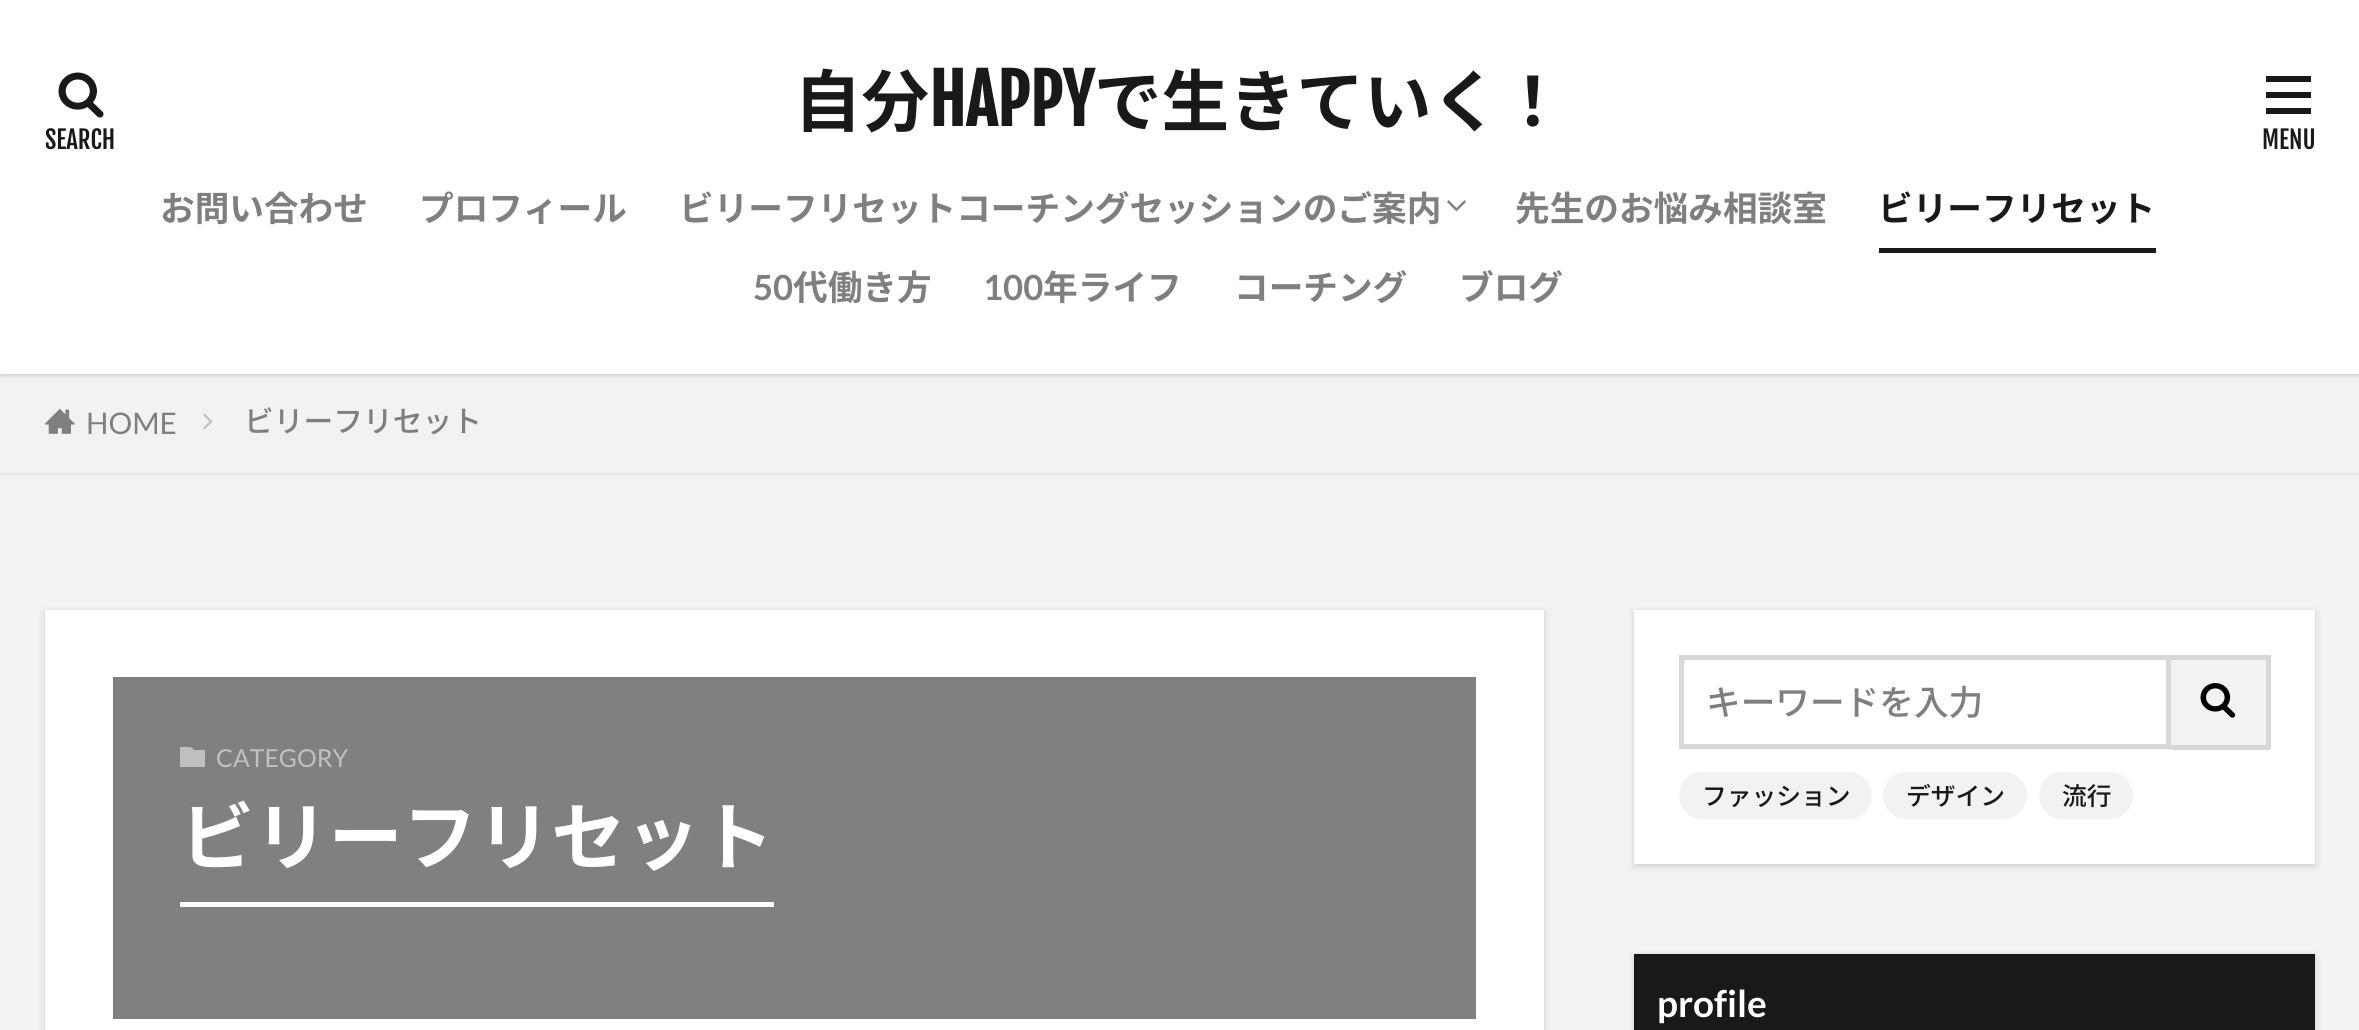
#include <cairo.h>
#include <math.h>
#include <stddef.h>

static cairo_t *ctx;

static void use_color(int r, int g, int b) {
    cairo_set_source_rgb(ctx, r / 255.0, g / 255.0, b / 255.0);
}

static void round_rect(double x, double y, double w, double h, double r) {
    cairo_new_sub_path(ctx);
    cairo_arc(ctx, x + w - r, y + h - r, r, 0, M_PI / 2);
    cairo_arc(ctx, x + r, y + h - r, r, M_PI / 2, M_PI);
    cairo_arc(ctx, x + r, y + r, r, M_PI, 1.5 * M_PI);
    cairo_arc(ctx, x + w - r, y + r, r, 1.5 * M_PI, 2 * M_PI);
    cairo_close_path(ctx);
}

static void shadow(double x, double y, double w, double h, double r, double blur, double alpha) {
    cairo_push_group_with_content(ctx, CAIRO_CONTENT_ALPHA);
    cairo_set_operator(ctx, CAIRO_OPERATOR_SOURCE);
    for (int i = 15; i >= -15 && fmin(w, h) + blur * i / 3 > 0; i -= 2) {
        double e = blur * i / 6;
        cairo_set_source_rgba(ctx, 0, 0, 0, alpha * erfc((i - 1) / 8.5) / 2);
        round_rect(x - e, y - e, w + 2 * e, h + 2 * e, fmax(0, fmin(r + e + blur * .6, fmin(w, h) / 2 + e)));
        cairo_fill(ctx);
    }
    cairo_pattern_t *soft = cairo_pop_group(ctx);
    cairo_mask(ctx, soft);
    cairo_pattern_destroy(soft);
}

static void picture(const char *path, double x, double y, double w, double h) {
    cairo_surface_t *image = cairo_image_surface_create_from_png(path);
    cairo_save(ctx);
    cairo_set_source_surface(ctx, image, x, y);
    cairo_rectangle(ctx, x, y, w, h);
    cairo_fill(ctx);
    cairo_restore(ctx);
    cairo_surface_destroy(image);
}

int main(void) {
    cairo_surface_t *surface = cairo_image_surface_create(CAIRO_FORMAT_RGB24, 2359, 1030);
    ctx = cairo_create(surface);
    cairo_font_options_t *options = cairo_font_options_create();
    cairo_font_options_set_hint_metrics(options, CAIRO_HINT_METRICS_OFF);
    cairo_font_options_set_hint_style(options, CAIRO_HINT_STYLE_NONE);
    cairo_set_font_options(ctx, options);
    cairo_set_miter_limit(ctx, 4);
    use_color(242, 242, 242);
    cairo_paint(ctx);
    use_color(0, 0, 0);
    shadow(0, 2, 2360, 374, 0, 2, 0.15);
    use_color(255, 255, 255);
    cairo_rectangle(ctx, 0, 0, 2359, 374);
    cairo_fill(ctx);
    cairo_select_font_face(ctx, "Noto Sans JP", CAIRO_FONT_SLANT_NORMAL, CAIRO_FONT_WEIGHT_BOLD);
    cairo_set_font_size(ctx, 67.5);
    use_color(25, 25, 25);
    cairo_move_to(ctx, 794, 126);
    cairo_show_text(ctx, "自分");
    cairo_select_font_face(ctx, "Fjalla One", CAIRO_FONT_SLANT_NORMAL, CAIRO_FONT_WEIGHT_BOLD);
    cairo_move_to(ctx, 929, 126);
    cairo_show_text(ctx, "HAPPY");
    cairo_select_font_face(ctx, "Noto Sans JP", CAIRO_FONT_SLANT_NORMAL, CAIRO_FONT_WEIGHT_BOLD);
    cairo_move_to(ctx, 1094, 126);
    cairo_show_text(ctx, "で生きていく！");
    picture("img1.png", 58, 72, 46, 46);
    cairo_select_font_face(ctx, "Fjalla One", CAIRO_FONT_SLANT_NORMAL, CAIRO_FONT_WEIGHT_NORMAL);
    cairo_set_font_size(ctx, 24.75);
    cairo_move_to(ctx, 45, 149);
    cairo_show_text(ctx, "SEARCH");
    cairo_new_path(ctx);
    cairo_move_to(ctx, 2266, 76);
    cairo_line_to(ctx, 2311, 76);
    cairo_line_to(ctx, 2311, 82);
    cairo_line_to(ctx, 2266, 82);
    cairo_close_path(ctx);
    cairo_move_to(ctx, 2266, 92);
    cairo_line_to(ctx, 2311, 92);
    cairo_line_to(ctx, 2311, 98);
    cairo_line_to(ctx, 2266, 98);
    cairo_close_path(ctx);
    cairo_move_to(ctx, 2266, 108);
    cairo_line_to(ctx, 2311, 108);
    cairo_line_to(ctx, 2311, 114);
    cairo_line_to(ctx, 2266, 114);
    cairo_close_path(ctx);
    cairo_fill(ctx);
    cairo_move_to(ctx, 2262, 149);
    cairo_show_text(ctx, "MENU");
    cairo_select_font_face(ctx, "Noto Sans JP", CAIRO_FONT_SLANT_NORMAL, CAIRO_FONT_WEIGHT_BOLD);
    cairo_set_font_size(ctx, 34.65);
    use_color(127, 127, 127);
    cairo_move_to(ctx, 160, 221);
    cairo_show_text(ctx, "お問い合わせ");
    cairo_move_to(ctx, 419, 221);
    cairo_show_text(ctx, "プロフィール");
    cairo_move_to(ctx, 679, 221);
    cairo_show_text(ctx, "ビリーフリセットコーチングセッションのご案内");
    use_color(128, 128, 128);
    cairo_new_path(ctx);
    cairo_move_to(ctx, 1466, 202);
    cairo_line_to(ctx, 1456.5, 211.5);
    cairo_line_to(ctx, 1456.5, 208);
    cairo_line_to(ctx, 1464.5, 200);
    cairo_close_path(ctx);
    cairo_fill(ctx);
    cairo_set_source_rgba(ctx, 0, 0, 0, 0.5);
    cairo_new_path(ctx);
    cairo_move_to(ctx, 1456.5, 211.5);
    cairo_line_to(ctx, 1447, 202);
    cairo_line_to(ctx, 1448.5, 200);
    cairo_line_to(ctx, 1456.5, 208);
    cairo_close_path(ctx);
    cairo_fill(ctx);
    use_color(127, 127, 127);
    cairo_move_to(ctx, 1515, 221);
    cairo_show_text(ctx, "先生のお悩み相談室");
    use_color(26, 26, 26);
    cairo_rectangle(ctx, 1879, 248, 277, 5);
    cairo_fill(ctx);
    use_color(25, 25, 25);
    cairo_move_to(ctx, 1878, 221);
    cairo_show_text(ctx, "ビリーフリセット");
    cairo_select_font_face(ctx, "Lato", CAIRO_FONT_SLANT_NORMAL, CAIRO_FONT_WEIGHT_BOLD);
    use_color(127, 127, 127);
    cairo_move_to(ctx, 753, 300);
    cairo_show_text(ctx, "50");
    cairo_select_font_face(ctx, "Noto Sans JP", CAIRO_FONT_SLANT_NORMAL, CAIRO_FONT_WEIGHT_BOLD);
    cairo_move_to(ctx, 793, 300);
    cairo_show_text(ctx, "代働き方");
    cairo_select_font_face(ctx, "Lato", CAIRO_FONT_SLANT_NORMAL, CAIRO_FONT_WEIGHT_BOLD);
    cairo_move_to(ctx, 983, 300);
    cairo_show_text(ctx, "100");
    cairo_select_font_face(ctx, "Noto Sans JP", CAIRO_FONT_SLANT_NORMAL, CAIRO_FONT_WEIGHT_BOLD);
    cairo_move_to(ctx, 1043, 300);
    cairo_show_text(ctx, "年ライフ");
    cairo_move_to(ctx, 1234, 300);
    cairo_show_text(ctx, "コーチング");
    cairo_move_to(ctx, 1459, 300);
    cairo_show_text(ctx, "ブログ");
    use_color(230, 230, 230);
    cairo_rectangle(ctx, 0, 473, 2359, 2);
    cairo_fill(ctx);
    picture("img2.png", 45, 408, 30, 26);
    cairo_select_font_face(ctx, "Lato", CAIRO_FONT_SLANT_NORMAL, CAIRO_FONT_WEIGHT_NORMAL);
    cairo_set_font_size(ctx, 29.75);
    use_color(127, 127, 127);
    cairo_move_to(ctx, 86, 434);
    cairo_show_text(ctx, "HOME");
    use_color(191, 191, 191);
    cairo_new_path(ctx);
    cairo_move_to(ctx, 204.5, 413.5);
    cairo_line_to(ctx, 212.5, 421.5);
    cairo_line_to(ctx, 211, 423);
    cairo_line_to(ctx, 203, 415);
    cairo_close_path(ctx);
    cairo_fill(ctx);
    cairo_new_path(ctx);
    cairo_move_to(ctx, 211, 420);
    cairo_line_to(ctx, 212.5, 421.5);
    cairo_line_to(ctx, 204.5, 429.5);
    cairo_line_to(ctx, 203, 428);
    cairo_close_path(ctx);
    cairo_fill(ctx);
    cairo_select_font_face(ctx, "Noto Sans JP Medium", CAIRO_FONT_SLANT_NORMAL, CAIRO_FONT_WEIGHT_NORMAL);
    use_color(127, 127, 127);
    cairo_move_to(ctx, 244, 432);
    cairo_show_text(ctx, "ビリーフリセット");
    use_color(0, 0, 0);
    shadow(45, 612, 1499, 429, 0, 3.5, 0.15);
    use_color(255, 255, 255);
    cairo_rectangle(ctx, 45, 610, 1499, 420);
    cairo_fill(ctx);
    use_color(128, 128, 128);
    cairo_rectangle(ctx, 113, 677, 1363, 342);
    cairo_fill(ctx);
    use_color(192, 192, 192);
    cairo_new_path(ctx);
    cairo_move_to(ctx, 191, 747);
    cairo_line_to(ctx, 194, 750);
    cairo_line_to(ctx, 205, 750);
    cairo_line_to(ctx, 205, 767);
    cairo_line_to(ctx, 180, 767);
    cairo_line_to(ctx, 180, 747);
    cairo_close_path(ctx);
    cairo_fill(ctx);
    cairo_select_font_face(ctx, "Lato", CAIRO_FONT_SLANT_NORMAL, CAIRO_FONT_WEIGHT_NORMAL);
    cairo_set_font_size(ctx, 24.75);
    cairo_move_to(ctx, 216, 767);
    cairo_show_text(ctx, "CATEGORY");
    use_color(255, 255, 255);
    cairo_rectangle(ctx, 180, 902, 594, 5);
    cairo_fill(ctx);
    cairo_select_font_face(ctx, "Noto Sans JP", CAIRO_FONT_SLANT_NORMAL, CAIRO_FONT_WEIGHT_BOLD);
    cairo_set_font_size(ctx, 74.25);
    cairo_move_to(ctx, 180, 864);
    cairo_show_text(ctx, "ビリーフリセット");
    use_color(0, 0, 0);
    shadow(1634, 612, 681, 254, 0, 3.5, 0.15);
    use_color(255, 255, 255);
    cairo_rectangle(ctx, 1634, 610, 681, 254);
    cairo_fill(ctx);
    cairo_rectangle(ctx, 1681.5, 657.5, 487, 89);
    use_color(216, 216, 216);
    cairo_set_line_width(ctx, 5);
    cairo_stroke(ctx);
    cairo_select_font_face(ctx, "Noto Sans JP Medium", CAIRO_FONT_SLANT_NORMAL, CAIRO_FONT_WEIGHT_NORMAL);
    cairo_set_font_size(ctx, 34.65);
    use_color(127, 127, 127);
    cairo_move_to(ctx, 1706, 715);
    cairo_show_text(ctx, "キーワードを入力");
    use_color(242, 242, 242);
    cairo_rectangle(ctx, 2171, 660, 95, 85);
    cairo_fill(ctx);
    use_color(216, 216, 216);
    cairo_rectangle(ctx, 2171, 655, 99, 5);
    cairo_fill(ctx);
    cairo_rectangle(ctx, 2266, 655, 5, 94);
    cairo_fill(ctx);
    cairo_rectangle(ctx, 2171, 745, 99, 5);
    cairo_fill(ctx);
    picture("img3.png", 2200, 683, 36, 35);
    use_color(242, 242, 242);
    round_rect(1679, 772, 193, 47, 23.5);
    cairo_fill(ctx);
    cairo_set_font_size(ctx, 24.75);
    use_color(25, 25, 25);
    cairo_move_to(ctx, 1702, 805);
    cairo_show_text(ctx, "ファッション");
    use_color(242, 242, 242);
    round_rect(1883, 772, 144, 47, 23.5);
    cairo_fill(ctx);
    use_color(25, 25, 25);
    cairo_move_to(ctx, 1906, 805);
    cairo_show_text(ctx, "デザイン");
    use_color(242, 242, 242);
    round_rect(2039, 772, 94, 47, 23.5);
    cairo_fill(ctx);
    use_color(25, 25, 25);
    cairo_move_to(ctx, 2062, 805);
    cairo_show_text(ctx, "流行");
    use_color(0, 0, 0);
    shadow(1634, 956, 681, 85, 0, 3.5, 0.15);
    use_color(25, 25, 25);
    cairo_rectangle(ctx, 1634, 954, 681, 76);
    cairo_fill(ctx);
    cairo_select_font_face(ctx, "Lato", CAIRO_FONT_SLANT_NORMAL, CAIRO_FONT_WEIGHT_BOLD);
    cairo_set_font_size(ctx, 37);
    use_color(255, 255, 255);
    cairo_move_to(ctx, 1657, 1017);
    cairo_show_text(ctx, "profile");
    cairo_surface_write_to_png(surface, "result.png");
    cairo_font_options_destroy(options);
    cairo_destroy(ctx);
    cairo_surface_destroy(surface);
    return 0;
}
